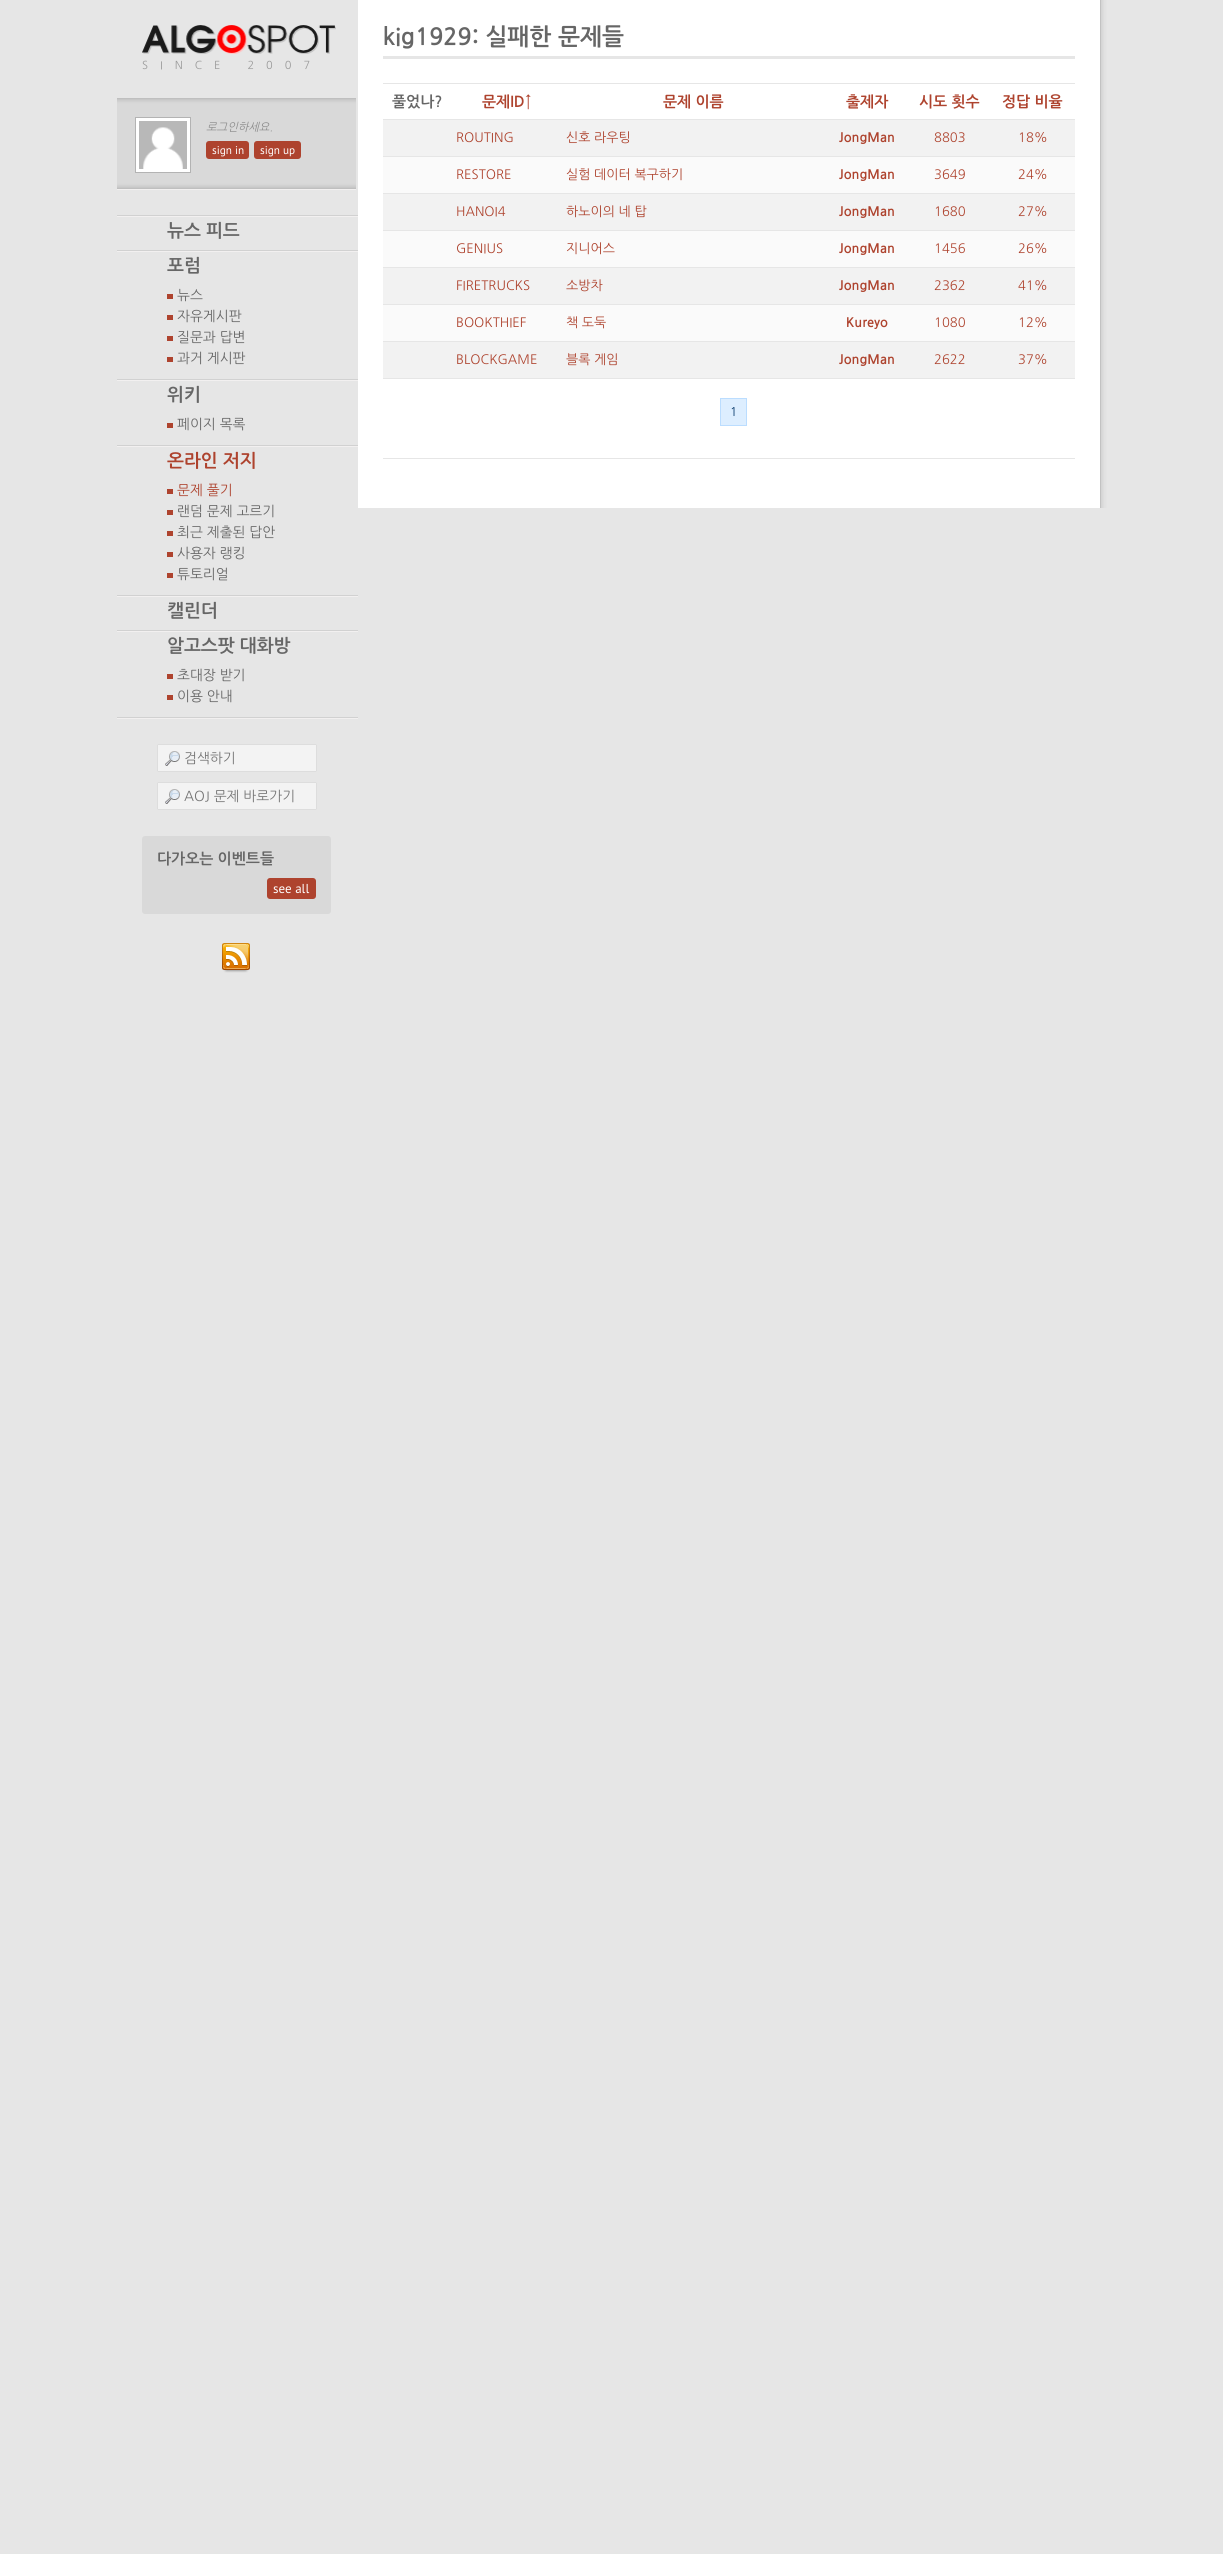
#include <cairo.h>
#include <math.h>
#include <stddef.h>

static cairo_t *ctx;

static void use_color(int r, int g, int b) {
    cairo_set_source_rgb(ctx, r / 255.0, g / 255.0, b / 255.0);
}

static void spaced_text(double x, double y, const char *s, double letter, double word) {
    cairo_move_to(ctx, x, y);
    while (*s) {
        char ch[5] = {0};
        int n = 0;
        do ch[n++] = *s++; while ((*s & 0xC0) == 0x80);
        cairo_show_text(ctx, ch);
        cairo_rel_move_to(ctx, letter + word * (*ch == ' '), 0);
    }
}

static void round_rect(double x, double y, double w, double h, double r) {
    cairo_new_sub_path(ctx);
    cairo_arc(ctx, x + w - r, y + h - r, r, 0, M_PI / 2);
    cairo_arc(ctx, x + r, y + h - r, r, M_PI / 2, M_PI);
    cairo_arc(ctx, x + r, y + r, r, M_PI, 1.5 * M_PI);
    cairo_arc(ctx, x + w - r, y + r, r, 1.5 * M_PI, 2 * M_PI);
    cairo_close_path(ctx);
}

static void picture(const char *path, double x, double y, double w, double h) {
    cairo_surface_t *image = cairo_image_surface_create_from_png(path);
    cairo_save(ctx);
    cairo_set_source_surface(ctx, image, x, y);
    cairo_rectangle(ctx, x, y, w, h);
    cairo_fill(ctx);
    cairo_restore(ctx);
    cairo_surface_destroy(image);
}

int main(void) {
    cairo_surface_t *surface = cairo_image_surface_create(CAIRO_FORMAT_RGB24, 1223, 2554);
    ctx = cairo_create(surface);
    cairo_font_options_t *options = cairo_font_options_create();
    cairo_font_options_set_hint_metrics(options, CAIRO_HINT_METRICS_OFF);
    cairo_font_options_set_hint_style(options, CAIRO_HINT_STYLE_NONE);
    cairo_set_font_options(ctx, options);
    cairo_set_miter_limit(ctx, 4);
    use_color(230, 230, 230);
    cairo_paint(ctx);
    picture("img1.png", 142, 25, 194, 29);
    cairo_select_font_face(ctx, "NanumGothic", CAIRO_FONT_SLANT_NORMAL, CAIRO_FONT_WEIGHT_NORMAL);
    cairo_set_font_size(ctx, 11);
    use_color(153, 153, 153);
    spaced_text(142, 69, "SINCE 2007", 12, 0);
    use_color(217, 217, 217);
    cairo_rectangle(ctx, 117, 99, 239, 90);
    cairo_fill(ctx);
    picture("img2.png", 117, 99, 239, 91);
    use_color(191, 191, 191);
    cairo_rectangle(ctx, 117, 98, 239, 1);
    cairo_fill(ctx);
    use_color(255, 255, 255);
    cairo_rectangle(ctx, 135.5, 117.5, 55, 55);
    cairo_fill_preserve(ctx);
    use_color(179, 179, 179);
    cairo_set_line_width(ctx, 1);
    cairo_stroke(ctx);
    picture("img3.png", 139, 121, 48, 48);
    cairo_select_font_face(ctx, "NanumGothic", CAIRO_FONT_SLANT_ITALIC, CAIRO_FONT_WEIGHT_NORMAL);
    cairo_set_font_size(ctx, 11.25);
    use_color(140, 140, 140);
    cairo_move_to(ctx, 206, 131);
    cairo_show_text(ctx, "로그인하세요.");
    use_color(174, 67, 46);
    round_rect(206, 141, 43, 18, 3);
    cairo_fill(ctx);
    cairo_select_font_face(ctx, "PT Sans", CAIRO_FONT_SLANT_NORMAL, CAIRO_FONT_WEIGHT_NORMAL);
    use_color(255, 255, 255);
    cairo_move_to(ctx, 212, 154);
    cairo_show_text(ctx, "sign in");
    use_color(174, 67, 46);
    round_rect(254, 141, 47, 18, 3);
    cairo_fill(ctx);
    use_color(255, 255, 255);
    cairo_move_to(ctx, 260, 154);
    cairo_show_text(ctx, "sign up");
    picture("img4.png", 117, 717, 241, 2);
    picture("img4.png", 117, 215, 241, 2);
    cairo_select_font_face(ctx, "NanumGothic", CAIRO_FONT_SLANT_NORMAL, CAIRO_FONT_WEIGHT_BOLD);
    cairo_set_font_size(ctx, 18);
    use_color(102, 102, 102);
    cairo_move_to(ctx, 167, 237);
    cairo_show_text(ctx, "뉴스 피드");
    picture("img4.png", 117, 250, 241, 2);
    cairo_move_to(ctx, 167, 272);
    cairo_show_text(ctx, "포럼");
    use_color(174, 67, 46);
    cairo_rectangle(ctx, 167, 294, 6, 5);
    cairo_fill(ctx);
    cairo_select_font_face(ctx, "NanumGothic", CAIRO_FONT_SLANT_NORMAL, CAIRO_FONT_WEIGHT_NORMAL);
    cairo_set_font_size(ctx, 13.75);
    use_color(102, 102, 102);
    cairo_move_to(ctx, 177, 300);
    cairo_show_text(ctx, "뉴스");
    use_color(174, 67, 46);
    cairo_rectangle(ctx, 167, 315, 6, 5);
    cairo_fill(ctx);
    use_color(102, 102, 102);
    cairo_move_to(ctx, 177, 321);
    cairo_show_text(ctx, "자유게시판");
    use_color(174, 67, 46);
    cairo_rectangle(ctx, 167, 336, 6, 5);
    cairo_fill(ctx);
    use_color(102, 102, 102);
    cairo_move_to(ctx, 177, 342);
    cairo_show_text(ctx, "질문과 답변");
    use_color(174, 67, 46);
    cairo_rectangle(ctx, 167, 357, 6, 5);
    cairo_fill(ctx);
    use_color(102, 102, 102);
    cairo_move_to(ctx, 177, 363);
    cairo_show_text(ctx, "과거 게시판");
    picture("img4.png", 117, 379, 241, 2);
    cairo_select_font_face(ctx, "NanumGothic", CAIRO_FONT_SLANT_NORMAL, CAIRO_FONT_WEIGHT_BOLD);
    cairo_set_font_size(ctx, 18);
    cairo_move_to(ctx, 167, 401);
    cairo_show_text(ctx, "위키");
    use_color(174, 67, 46);
    cairo_rectangle(ctx, 167, 423, 6, 5);
    cairo_fill(ctx);
    cairo_select_font_face(ctx, "NanumGothic", CAIRO_FONT_SLANT_NORMAL, CAIRO_FONT_WEIGHT_NORMAL);
    cairo_set_font_size(ctx, 13.75);
    use_color(102, 102, 102);
    cairo_move_to(ctx, 177, 429);
    cairo_show_text(ctx, "페이지 목록");
    picture("img4.png", 117, 445, 241, 2);
    cairo_select_font_face(ctx, "NanumGothic", CAIRO_FONT_SLANT_NORMAL, CAIRO_FONT_WEIGHT_BOLD);
    cairo_set_font_size(ctx, 18);
    use_color(174, 67, 46);
    cairo_move_to(ctx, 167, 467);
    cairo_show_text(ctx, "온라인 저지");
    cairo_rectangle(ctx, 167, 489, 6, 5);
    cairo_fill(ctx);
    cairo_select_font_face(ctx, "NanumGothic", CAIRO_FONT_SLANT_NORMAL, CAIRO_FONT_WEIGHT_NORMAL);
    cairo_set_font_size(ctx, 13.75);
    cairo_move_to(ctx, 177, 495);
    cairo_show_text(ctx, "문제 풀기");
    cairo_rectangle(ctx, 167, 510, 6, 5);
    cairo_fill(ctx);
    use_color(102, 102, 102);
    cairo_move_to(ctx, 177, 516);
    cairo_show_text(ctx, "랜덤 문제 고르기");
    use_color(174, 67, 46);
    cairo_rectangle(ctx, 167, 531, 6, 5);
    cairo_fill(ctx);
    use_color(102, 102, 102);
    cairo_move_to(ctx, 177, 537);
    cairo_show_text(ctx, "최근 제출된 답안");
    use_color(174, 67, 46);
    cairo_rectangle(ctx, 167, 552, 6, 5);
    cairo_fill(ctx);
    use_color(102, 102, 102);
    cairo_move_to(ctx, 177, 558);
    cairo_show_text(ctx, "사용자 랭킹");
    use_color(174, 67, 46);
    cairo_rectangle(ctx, 167, 573, 6, 5);
    cairo_fill(ctx);
    use_color(102, 102, 102);
    cairo_move_to(ctx, 177, 579);
    cairo_show_text(ctx, "튜토리얼");
    picture("img4.png", 117, 595, 241, 2);
    cairo_select_font_face(ctx, "NanumGothic", CAIRO_FONT_SLANT_NORMAL, CAIRO_FONT_WEIGHT_BOLD);
    cairo_set_font_size(ctx, 18);
    cairo_move_to(ctx, 167, 617);
    cairo_show_text(ctx, "캘린더");
    picture("img4.png", 117, 630, 241, 2);
    cairo_move_to(ctx, 167, 652);
    cairo_show_text(ctx, "알고스팟 대화방");
    use_color(174, 67, 46);
    cairo_rectangle(ctx, 167, 674, 6, 5);
    cairo_fill(ctx);
    cairo_select_font_face(ctx, "NanumGothic", CAIRO_FONT_SLANT_NORMAL, CAIRO_FONT_WEIGHT_NORMAL);
    cairo_set_font_size(ctx, 13.75);
    use_color(102, 102, 102);
    cairo_move_to(ctx, 177, 680);
    cairo_show_text(ctx, "초대장 받기");
    use_color(174, 67, 46);
    cairo_rectangle(ctx, 167, 695, 6, 5);
    cairo_fill(ctx);
    use_color(102, 102, 102);
    cairo_move_to(ctx, 177, 701);
    cairo_show_text(ctx, "이용 안내");
    use_color(243, 243, 243);
    round_rect(157, 744, 160, 28, 1);
    cairo_fill(ctx);
    picture("img5.png", 165, 751, 15, 15);
    round_rect(157.5, 744.5, 159, 27, 0.5);
    use_color(221, 221, 221);
    cairo_stroke(ctx);
    use_color(117, 117, 117);
    cairo_move_to(ctx, 184, 763);
    cairo_show_text(ctx, "검색하기");
    use_color(243, 243, 243);
    round_rect(157, 782, 160, 28, 1);
    cairo_fill(ctx);
    picture("img5.png", 165, 789, 15, 15);
    round_rect(157.5, 782.5, 159, 27, 0.5);
    use_color(221, 221, 221);
    cairo_stroke(ctx);
    use_color(117, 117, 117);
    cairo_move_to(ctx, 184, 801);
    cairo_show_text(ctx, "AOJ 문제 바로가기");
    use_color(217, 217, 217);
    round_rect(142, 836, 189, 78, 3);
    cairo_fill(ctx);
    cairo_select_font_face(ctx, "NanumGothic", CAIRO_FONT_SLANT_NORMAL, CAIRO_FONT_WEIGHT_BOLD);
    cairo_set_font_size(ctx, 15);
    use_color(102, 102, 102);
    cairo_move_to(ctx, 157, 864);
    cairo_show_text(ctx, "다가오는 이벤트들");
    use_color(174, 67, 46);
    round_rect(267, 878, 49, 21, 3);
    cairo_fill(ctx);
    cairo_select_font_face(ctx, "PT Sans", CAIRO_FONT_SLANT_NORMAL, CAIRO_FONT_WEIGHT_NORMAL);
    cairo_set_font_size(ctx, 13);
    use_color(255, 255, 255);
    cairo_move_to(ctx, 273, 893);
    cairo_show_text(ctx, "see all");
    picture("img6.png", 222, 943, 28, 30);
    cairo_rectangle(ctx, 358, 0, 749, 508);
    cairo_fill(ctx);
    picture("img7.png", 1100, 0, 7, 508);
    use_color(230, 230, 230);
    cairo_rectangle(ctx, 383, 56, 692, 3);
    cairo_fill(ctx);
    cairo_select_font_face(ctx, "NanumGothic", CAIRO_FONT_SLANT_NORMAL, CAIRO_FONT_WEIGHT_BOLD);
    cairo_set_font_size(ctx, 23.4);
    use_color(102, 102, 102);
    cairo_move_to(ctx, 383, 45);
    cairo_show_text(ctx, "kig1929: 실패한 문제들");
    use_color(230, 230, 230);
    cairo_rectangle(ctx, 383, 83, 692, 1);
    cairo_fill(ctx);
    cairo_rectangle(ctx, 383, 378, 692, 1);
    cairo_fill(ctx);
    cairo_set_font_size(ctx, 15);
    use_color(102, 102, 102);
    cairo_move_to(ctx, 392, 107);
    cairo_show_text(ctx, "풀었나?");
    use_color(174, 67, 46);
    cairo_move_to(ctx, 482, 107);
    cairo_show_text(ctx, "문제ID↑");
    cairo_move_to(ctx, 663, 107);
    cairo_show_text(ctx, "문제 이름");
    cairo_move_to(ctx, 846, 107);
    cairo_show_text(ctx, "출제자");
    cairo_move_to(ctx, 919, 107);
    cairo_show_text(ctx, "시도 횟수");
    cairo_move_to(ctx, 1002, 107);
    cairo_show_text(ctx, "정답 비율");
    use_color(230, 230, 230);
    cairo_rectangle(ctx, 383, 119, 692, 1);
    cairo_fill(ctx);
    use_color(242, 242, 242);
    cairo_rectangle(ctx, 383, 120, 692, 36);
    cairo_fill(ctx);
    cairo_select_font_face(ctx, "NanumGothic", CAIRO_FONT_SLANT_NORMAL, CAIRO_FONT_WEIGHT_NORMAL);
    cairo_set_font_size(ctx, 13);
    use_color(174, 67, 46);
    cairo_move_to(ctx, 456, 142);
    cairo_show_text(ctx, "ROUTING");
    cairo_move_to(ctx, 566, 142);
    cairo_show_text(ctx, "신호 라우팅");
    cairo_select_font_face(ctx, "NanumGothic", CAIRO_FONT_SLANT_NORMAL, CAIRO_FONT_WEIGHT_BOLD);
    cairo_move_to(ctx, 839, 142);
    cairo_show_text(ctx, "JongMan");
    cairo_select_font_face(ctx, "NanumGothic", CAIRO_FONT_SLANT_NORMAL, CAIRO_FONT_WEIGHT_NORMAL);
    cairo_move_to(ctx, 934, 142);
    cairo_show_text(ctx, "8803");
    use_color(230, 230, 230);
    cairo_rectangle(ctx, 383, 156, 692, 1);
    cairo_fill(ctx);
    use_color(174, 67, 46);
    cairo_move_to(ctx, 1018, 142);
    cairo_show_text(ctx, "18%");
    use_color(250, 250, 250);
    cairo_rectangle(ctx, 383, 157, 692, 36);
    cairo_fill(ctx);
    use_color(174, 67, 46);
    cairo_move_to(ctx, 456, 179);
    cairo_show_text(ctx, "RESTORE");
    cairo_move_to(ctx, 566, 179);
    cairo_show_text(ctx, "실험 데이터 복구하기");
    cairo_select_font_face(ctx, "NanumGothic", CAIRO_FONT_SLANT_NORMAL, CAIRO_FONT_WEIGHT_BOLD);
    cairo_move_to(ctx, 839, 179);
    cairo_show_text(ctx, "JongMan");
    cairo_select_font_face(ctx, "NanumGothic", CAIRO_FONT_SLANT_NORMAL, CAIRO_FONT_WEIGHT_NORMAL);
    cairo_move_to(ctx, 934, 179);
    cairo_show_text(ctx, "3649");
    use_color(230, 230, 230);
    cairo_rectangle(ctx, 383, 193, 692, 1);
    cairo_fill(ctx);
    use_color(174, 67, 46);
    cairo_move_to(ctx, 1018, 179);
    cairo_show_text(ctx, "24%");
    use_color(242, 242, 242);
    cairo_rectangle(ctx, 383, 194, 692, 36);
    cairo_fill(ctx);
    use_color(174, 67, 46);
    cairo_move_to(ctx, 456, 216);
    cairo_show_text(ctx, "HANOI4");
    cairo_move_to(ctx, 566, 216);
    cairo_show_text(ctx, "하노이의 네 탑");
    cairo_select_font_face(ctx, "NanumGothic", CAIRO_FONT_SLANT_NORMAL, CAIRO_FONT_WEIGHT_BOLD);
    cairo_move_to(ctx, 839, 216);
    cairo_show_text(ctx, "JongMan");
    cairo_select_font_face(ctx, "NanumGothic", CAIRO_FONT_SLANT_NORMAL, CAIRO_FONT_WEIGHT_NORMAL);
    cairo_move_to(ctx, 934, 216);
    cairo_show_text(ctx, "1680");
    use_color(230, 230, 230);
    cairo_rectangle(ctx, 383, 230, 692, 1);
    cairo_fill(ctx);
    use_color(174, 67, 46);
    cairo_move_to(ctx, 1018, 216);
    cairo_show_text(ctx, "27%");
    use_color(250, 250, 250);
    cairo_rectangle(ctx, 383, 231, 692, 36);
    cairo_fill(ctx);
    use_color(174, 67, 46);
    cairo_move_to(ctx, 456, 253);
    cairo_show_text(ctx, "GENIUS");
    cairo_move_to(ctx, 566, 253);
    cairo_show_text(ctx, "지니어스");
    cairo_select_font_face(ctx, "NanumGothic", CAIRO_FONT_SLANT_NORMAL, CAIRO_FONT_WEIGHT_BOLD);
    cairo_move_to(ctx, 839, 253);
    cairo_show_text(ctx, "JongMan");
    cairo_select_font_face(ctx, "NanumGothic", CAIRO_FONT_SLANT_NORMAL, CAIRO_FONT_WEIGHT_NORMAL);
    cairo_move_to(ctx, 934, 253);
    cairo_show_text(ctx, "1456");
    use_color(230, 230, 230);
    cairo_rectangle(ctx, 383, 267, 692, 1);
    cairo_fill(ctx);
    use_color(174, 67, 46);
    cairo_move_to(ctx, 1018, 253);
    cairo_show_text(ctx, "26%");
    use_color(242, 242, 242);
    cairo_rectangle(ctx, 383, 268, 692, 36);
    cairo_fill(ctx);
    use_color(174, 67, 46);
    cairo_move_to(ctx, 456, 290);
    cairo_show_text(ctx, "FIRETRUCKS");
    cairo_move_to(ctx, 566, 290);
    cairo_show_text(ctx, "소방차");
    cairo_select_font_face(ctx, "NanumGothic", CAIRO_FONT_SLANT_NORMAL, CAIRO_FONT_WEIGHT_BOLD);
    cairo_move_to(ctx, 839, 290);
    cairo_show_text(ctx, "JongMan");
    cairo_select_font_face(ctx, "NanumGothic", CAIRO_FONT_SLANT_NORMAL, CAIRO_FONT_WEIGHT_NORMAL);
    cairo_move_to(ctx, 934, 290);
    cairo_show_text(ctx, "2362");
    use_color(230, 230, 230);
    cairo_rectangle(ctx, 383, 304, 692, 1);
    cairo_fill(ctx);
    use_color(174, 67, 46);
    cairo_move_to(ctx, 1018, 290);
    cairo_show_text(ctx, "41%");
    use_color(250, 250, 250);
    cairo_rectangle(ctx, 383, 305, 692, 36);
    cairo_fill(ctx);
    use_color(174, 67, 46);
    cairo_move_to(ctx, 456, 327);
    cairo_show_text(ctx, "BOOKTHIEF");
    cairo_move_to(ctx, 566, 327);
    cairo_show_text(ctx, "책 도둑");
    cairo_select_font_face(ctx, "NanumGothic", CAIRO_FONT_SLANT_NORMAL, CAIRO_FONT_WEIGHT_BOLD);
    cairo_move_to(ctx, 846, 327);
    cairo_show_text(ctx, "Kureyo");
    cairo_select_font_face(ctx, "NanumGothic", CAIRO_FONT_SLANT_NORMAL, CAIRO_FONT_WEIGHT_NORMAL);
    cairo_move_to(ctx, 934, 327);
    cairo_show_text(ctx, "1080");
    use_color(230, 230, 230);
    cairo_rectangle(ctx, 383, 341, 692, 1);
    cairo_fill(ctx);
    use_color(174, 67, 46);
    cairo_move_to(ctx, 1018, 327);
    cairo_show_text(ctx, "12%");
    use_color(242, 242, 242);
    cairo_rectangle(ctx, 383, 342, 692, 36);
    cairo_fill(ctx);
    use_color(174, 67, 46);
    cairo_move_to(ctx, 456, 364);
    cairo_show_text(ctx, "BLOCKGAME");
    cairo_move_to(ctx, 566, 364);
    cairo_show_text(ctx, "블록 게임");
    cairo_select_font_face(ctx, "NanumGothic", CAIRO_FONT_SLANT_NORMAL, CAIRO_FONT_WEIGHT_BOLD);
    cairo_move_to(ctx, 839, 364);
    cairo_show_text(ctx, "JongMan");
    cairo_select_font_face(ctx, "NanumGothic", CAIRO_FONT_SLANT_NORMAL, CAIRO_FONT_WEIGHT_NORMAL);
    cairo_move_to(ctx, 934, 364);
    cairo_show_text(ctx, "2622");
    cairo_move_to(ctx, 1018, 364);
    cairo_show_text(ctx, "37%");
    use_color(221, 238, 255);
    cairo_rectangle(ctx, 720.5, 398.5, 26, 27);
    cairo_fill_preserve(ctx);
    use_color(187, 221, 255);
    cairo_stroke(ctx);
    cairo_set_font_size(ctx, 12);
    use_color(0, 51, 102);
    cairo_move_to(ctx, 730, 416);
    cairo_show_text(ctx, "1");
    use_color(230, 230, 230);
    cairo_rectangle(ctx, 383, 458, 692, 1);
    cairo_fill(ctx);
    cairo_surface_write_to_png(surface, "result.png");
    cairo_font_options_destroy(options);
    cairo_destroy(ctx);
    cairo_surface_destroy(surface);
    return 0;
}
